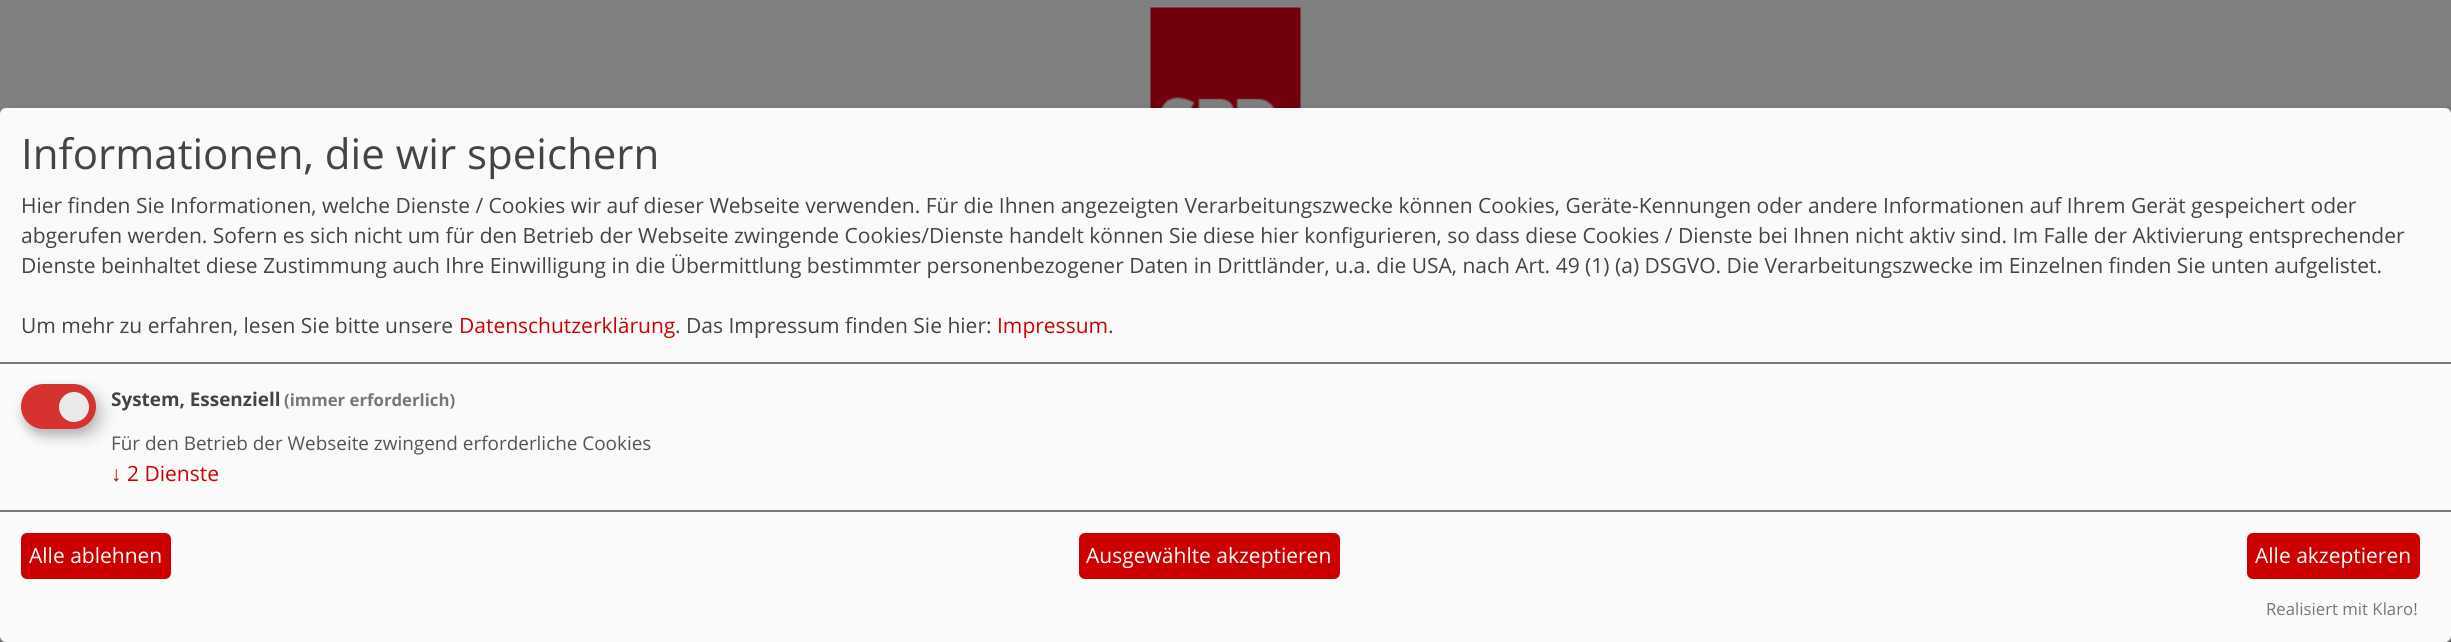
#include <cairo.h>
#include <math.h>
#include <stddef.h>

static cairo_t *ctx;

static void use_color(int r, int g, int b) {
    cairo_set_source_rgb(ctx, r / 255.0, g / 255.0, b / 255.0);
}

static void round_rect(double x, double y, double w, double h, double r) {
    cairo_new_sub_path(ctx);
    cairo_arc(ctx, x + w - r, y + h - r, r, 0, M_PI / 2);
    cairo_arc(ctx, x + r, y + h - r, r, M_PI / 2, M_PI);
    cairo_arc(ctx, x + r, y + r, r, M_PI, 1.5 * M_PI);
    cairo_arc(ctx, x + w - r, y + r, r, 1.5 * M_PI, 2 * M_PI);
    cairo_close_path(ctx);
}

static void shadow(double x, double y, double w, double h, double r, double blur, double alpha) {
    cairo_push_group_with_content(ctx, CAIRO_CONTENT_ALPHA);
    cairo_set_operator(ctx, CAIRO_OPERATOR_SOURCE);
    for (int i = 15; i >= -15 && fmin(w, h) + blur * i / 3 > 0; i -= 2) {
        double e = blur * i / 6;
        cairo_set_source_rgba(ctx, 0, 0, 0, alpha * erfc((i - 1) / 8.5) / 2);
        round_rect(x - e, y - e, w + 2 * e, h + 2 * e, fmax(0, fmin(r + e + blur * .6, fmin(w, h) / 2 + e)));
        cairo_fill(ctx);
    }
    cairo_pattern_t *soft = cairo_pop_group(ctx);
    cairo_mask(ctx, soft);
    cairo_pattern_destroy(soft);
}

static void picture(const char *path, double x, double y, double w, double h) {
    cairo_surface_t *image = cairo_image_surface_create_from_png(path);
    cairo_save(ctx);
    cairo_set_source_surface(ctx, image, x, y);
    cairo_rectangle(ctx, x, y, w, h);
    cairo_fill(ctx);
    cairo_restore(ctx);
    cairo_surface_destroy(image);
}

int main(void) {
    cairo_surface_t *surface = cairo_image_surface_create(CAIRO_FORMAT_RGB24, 2451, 642);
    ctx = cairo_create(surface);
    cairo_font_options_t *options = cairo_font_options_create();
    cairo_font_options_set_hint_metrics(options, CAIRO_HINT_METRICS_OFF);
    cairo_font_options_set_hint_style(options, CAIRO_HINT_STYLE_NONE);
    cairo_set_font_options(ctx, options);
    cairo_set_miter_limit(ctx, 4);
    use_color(128, 128, 128);
    cairo_paint(ctx);
    picture("img1.png", 1150, 7, 151, 101);
    use_color(0, 0, 0);
    shadow(8, 116, 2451, 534, 6, 7.5, 0.19);
    shadow(0, 114, 2451, 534, 6, 4.5, 0.2);
    use_color(250, 250, 250);
    round_rect(0, 108, 2451, 534, 6);
    cairo_fill(ctx);
    use_color(119, 119, 119);
    cairo_rectangle(ctx, 0, 362, 2451, 2);
    cairo_fill(ctx);
    cairo_select_font_face(ctx, "Open Sans", CAIRO_FONT_SLANT_NORMAL, CAIRO_FONT_WEIGHT_NORMAL);
    cairo_set_font_size(ctx, 42);
    use_color(68, 68, 68);
    cairo_move_to(ctx, 21, 169);
    cairo_show_text(ctx, "Informationen, die wir speichern");
    cairo_set_font_size(ctx, 21);
    cairo_move_to(ctx, 21, 213);
    cairo_show_text(ctx, "Hier finden Sie Informationen, welche Dienste / Cookies wir auf dieser Webseite verwenden. Für die Ihnen angezeigten Verarbeitungszwecke können Cookies, Geräte-Kennungen oder andere Informationen auf Ihrem Gerät gespeichert oder");
    cairo_move_to(ctx, 21, 243);
    cairo_show_text(ctx, "abgerufen werden. Sofern es sich nicht um für den Betrieb der Webseite zwingende Cookies/Dienste handelt können Sie diese hier konfigurieren, so dass diese Cookies / Dienste bei Ihnen nicht aktiv sind. Im Falle der Aktivierung entsprechender");
    cairo_move_to(ctx, 21, 273);
    cairo_show_text(ctx, "Dienste beinhaltet diese Zustimmung auch Ihre Einwilligung in die Übermittlung bestimmter personenbezogener Daten in Drittländer, u.a. die USA, nach Art. 49 (1) (a) DSGVO. Die Verarbeitungszwecke im Einzelnen finden Sie unten aufgelistet.");
    cairo_move_to(ctx, 21, 333);
    cairo_show_text(ctx, "Um mehr zu erfahren, lesen Sie bitte unsere");
    use_color(205, 0, 0);
    cairo_move_to(ctx, 459, 333);
    cairo_show_text(ctx, "Datenschutzerklärung");
    use_color(68, 68, 68);
    cairo_move_to(ctx, 675, 333);
    cairo_show_text(ctx, ". Das Impressum finden Sie hier:");
    use_color(205, 0, 0);
    cairo_move_to(ctx, 997, 333);
    cairo_show_text(ctx, "Impressum");
    use_color(68, 68, 68);
    cairo_move_to(ctx, 1108, 333);
    cairo_show_text(ctx, ".");
    use_color(0, 0, 0);
    shadow(29, 392, 75, 45, 22.5, 7.5, 0.15);
    use_color(50, 50, 50);
    shadow(21, 390, 75, 45, 22.5, 4.5, 0.2);
    use_color(214, 50, 50);
    round_rect(21, 384, 75, 45, 22.5);
    cairo_fill(ctx);
    use_color(234, 234, 234);
    cairo_arc(ctx, 74, 407, 15, 0, 2 * M_PI);
    cairo_fill(ctx);
    cairo_select_font_face(ctx, "Open Sans", CAIRO_FONT_SLANT_NORMAL, CAIRO_FONT_WEIGHT_BOLD);
    cairo_set_font_size(ctx, 18.9);
    use_color(68, 68, 68);
    cairo_move_to(ctx, 111, 406);
    cairo_show_text(ctx, "System, Essenziell");
    cairo_set_font_size(ctx, 16.75);
    use_color(119, 119, 119);
    cairo_move_to(ctx, 284, 406);
    cairo_show_text(ctx, "(immer erforderlich)");
    cairo_select_font_face(ctx, "Open Sans", CAIRO_FONT_SLANT_NORMAL, CAIRO_FONT_WEIGHT_NORMAL);
    cairo_set_font_size(ctx, 18.9);
    use_color(85, 85, 85);
    cairo_move_to(ctx, 111, 450);
    cairo_show_text(ctx, "Für den Betrieb der Webseite zwingend erforderliche Cookies");
    cairo_select_font_face(ctx, "Liberation Sans", CAIRO_FONT_SLANT_NORMAL, CAIRO_FONT_WEIGHT_NORMAL);
    cairo_set_font_size(ctx, 21);
    use_color(205, 0, 0);
    cairo_move_to(ctx, 111, 481);
    cairo_show_text(ctx, "↓");
    cairo_select_font_face(ctx, "Open Sans", CAIRO_FONT_SLANT_NORMAL, CAIRO_FONT_WEIGHT_NORMAL);
    cairo_move_to(ctx, 127, 481);
    cairo_show_text(ctx, "2 Dienste");
    use_color(119, 119, 119);
    cairo_rectangle(ctx, 0, 510, 2451, 2);
    cairo_fill(ctx);
    use_color(205, 0, 0);
    round_rect(21, 533, 150, 46, 6);
    cairo_fill(ctx);
    use_color(255, 255, 255);
    cairo_move_to(ctx, 29, 563);
    cairo_show_text(ctx, "Alle ablehnen");
    use_color(205, 0, 0);
    round_rect(1079, 533, 261, 46, 6);
    cairo_fill(ctx);
    use_color(255, 255, 255);
    cairo_move_to(ctx, 1086, 563);
    cairo_show_text(ctx, "Ausgewählte akzeptieren");
    use_color(205, 0, 0);
    round_rect(2247, 533, 173, 46, 6);
    cairo_fill(ctx);
    use_color(255, 255, 255);
    cairo_move_to(ctx, 2255, 563);
    cairo_show_text(ctx, "Alle akzeptieren");
    cairo_set_font_size(ctx, 16.75);
    use_color(119, 119, 119);
    cairo_move_to(ctx, 2266, 615);
    cairo_show_text(ctx, "Realisiert mit Klaro!");
    cairo_surface_write_to_png(surface, "result.png");
    cairo_font_options_destroy(options);
    cairo_destroy(ctx);
    cairo_surface_destroy(surface);
    return 0;
}
